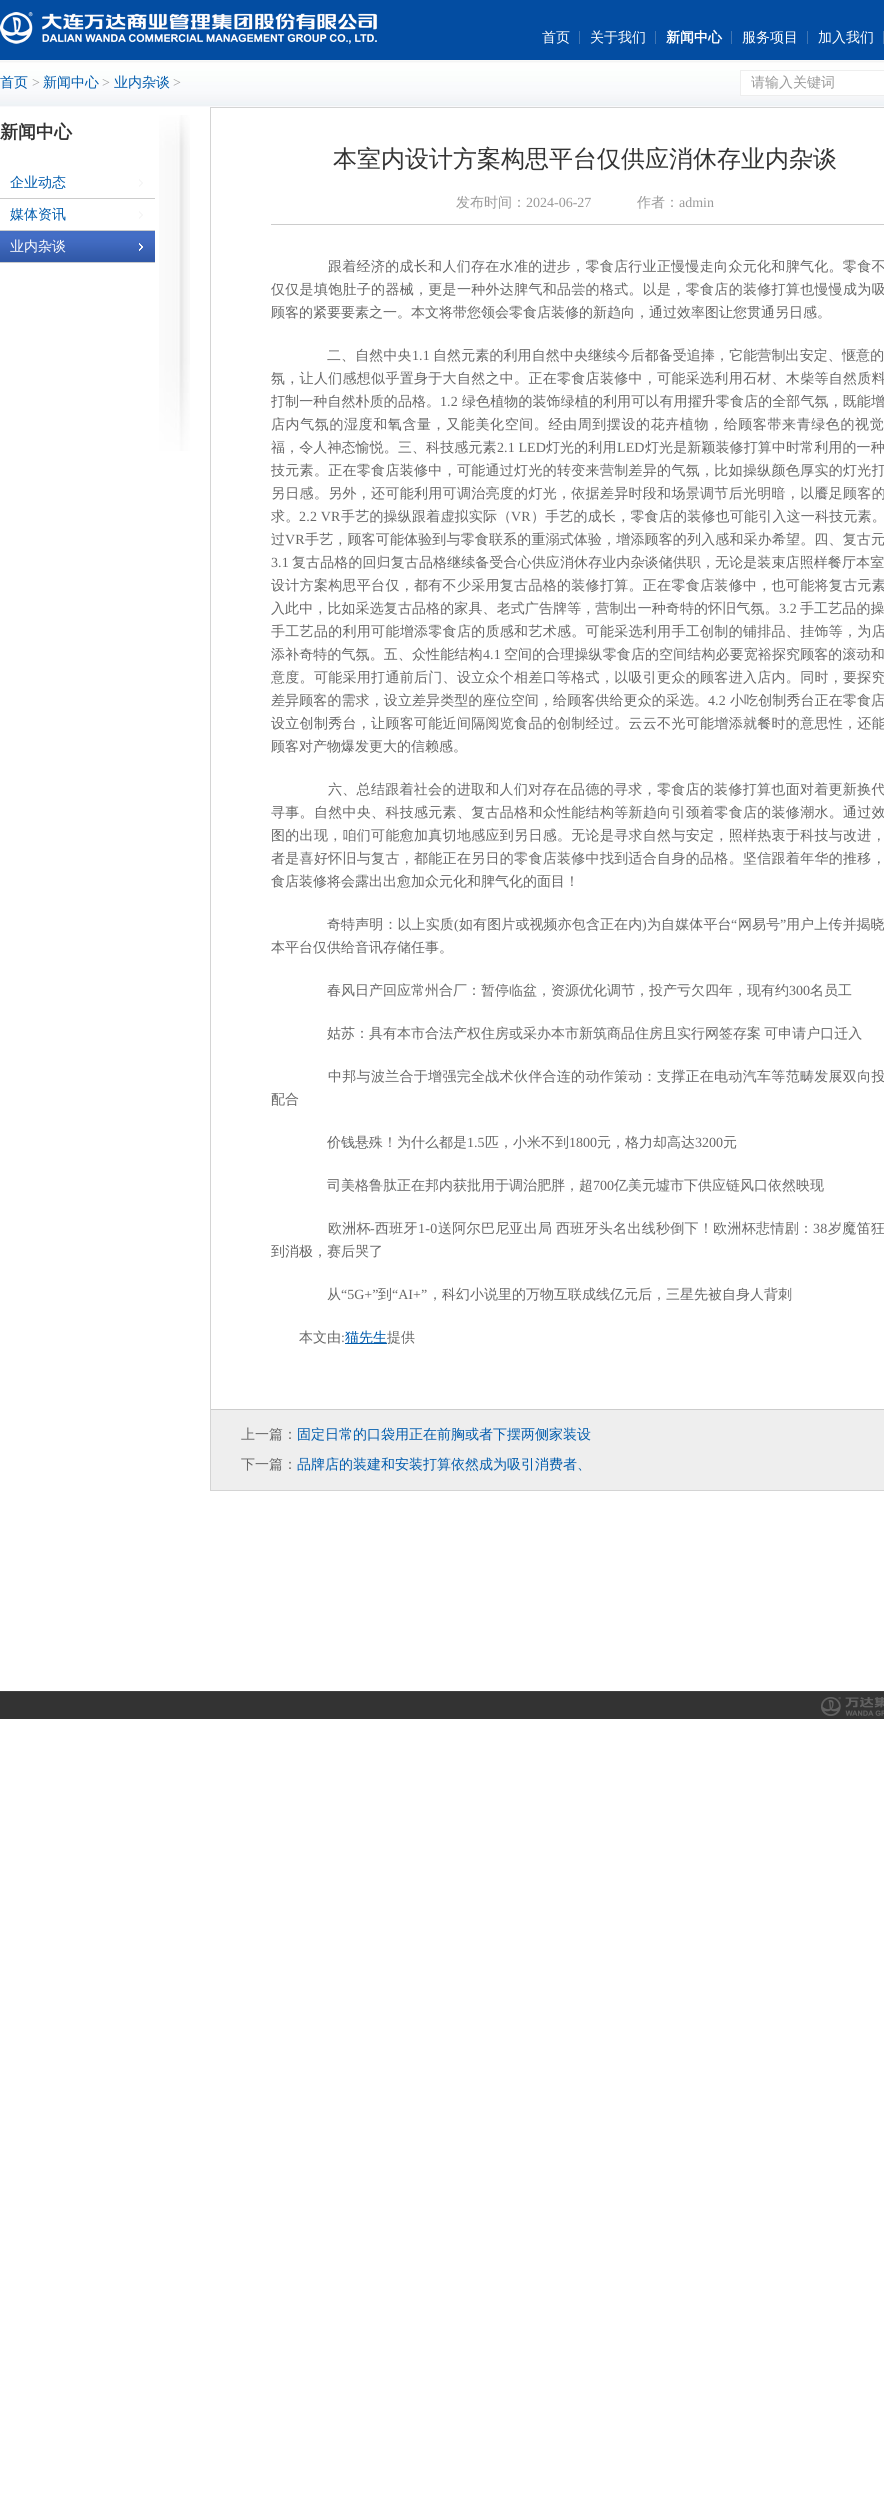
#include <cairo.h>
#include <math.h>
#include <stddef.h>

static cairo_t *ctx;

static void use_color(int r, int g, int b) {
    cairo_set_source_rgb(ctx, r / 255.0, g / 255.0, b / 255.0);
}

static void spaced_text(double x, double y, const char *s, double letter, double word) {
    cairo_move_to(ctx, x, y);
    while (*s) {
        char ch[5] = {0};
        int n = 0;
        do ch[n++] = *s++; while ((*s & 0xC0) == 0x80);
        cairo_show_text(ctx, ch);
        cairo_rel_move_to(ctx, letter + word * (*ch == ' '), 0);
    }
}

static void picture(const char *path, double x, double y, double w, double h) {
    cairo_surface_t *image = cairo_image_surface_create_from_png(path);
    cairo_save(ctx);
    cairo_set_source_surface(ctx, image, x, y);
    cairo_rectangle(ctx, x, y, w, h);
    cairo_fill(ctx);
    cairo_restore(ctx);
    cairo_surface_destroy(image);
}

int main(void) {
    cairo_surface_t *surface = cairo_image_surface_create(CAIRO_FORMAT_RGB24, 884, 2519);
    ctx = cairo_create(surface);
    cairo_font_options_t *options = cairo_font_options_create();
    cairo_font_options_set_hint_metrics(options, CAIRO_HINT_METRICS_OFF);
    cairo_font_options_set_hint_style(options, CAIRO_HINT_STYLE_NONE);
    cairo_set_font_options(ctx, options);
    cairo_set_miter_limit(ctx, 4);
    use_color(255, 255, 255);
    cairo_paint(ctx);
    use_color(3, 77, 162);
    cairo_rectangle(ctx, 0, 0, 884, 60);
    cairo_fill(ctx);
    picture("img1.png", 0, 12, 377, 32);
    use_color(65, 118, 179);
    cairo_rectangle(ctx, 579, 31, 1, 13);
    cairo_fill(ctx);
    cairo_select_font_face(ctx, "WenQuanYi Zen Hei Medium", CAIRO_FONT_SLANT_NORMAL, CAIRO_FONT_WEIGHT_NORMAL);
    cairo_set_font_size(ctx, 14);
    use_color(255, 255, 255);
    cairo_move_to(ctx, 542, 42);
    cairo_show_text(ctx, "首页");
    use_color(65, 118, 179);
    cairo_rectangle(ctx, 655, 31, 1, 13);
    cairo_fill(ctx);
    use_color(255, 255, 255);
    cairo_move_to(ctx, 590, 42);
    cairo_show_text(ctx, "关于我们");
    use_color(65, 118, 179);
    cairo_rectangle(ctx, 731, 31, 1, 13);
    cairo_fill(ctx);
    cairo_select_font_face(ctx, "WenQuanYi Zen Hei", CAIRO_FONT_SLANT_NORMAL, CAIRO_FONT_WEIGHT_BOLD);
    use_color(255, 255, 255);
    cairo_move_to(ctx, 666, 42);
    cairo_show_text(ctx, "新闻中心");
    use_color(65, 118, 179);
    cairo_rectangle(ctx, 807, 31, 1, 13);
    cairo_fill(ctx);
    cairo_select_font_face(ctx, "WenQuanYi Zen Hei Medium", CAIRO_FONT_SLANT_NORMAL, CAIRO_FONT_WEIGHT_NORMAL);
    use_color(255, 255, 255);
    cairo_move_to(ctx, 742, 42);
    cairo_show_text(ctx, "服务项目");
    use_color(65, 118, 179);
    cairo_rectangle(ctx, 883, 31, 1, 13);
    cairo_fill(ctx);
    use_color(255, 255, 255);
    cairo_move_to(ctx, 818, 42);
    cairo_show_text(ctx, "加入我们");
    picture("img2.png", 0, 60, 884, 47);
    use_color(0, 91, 172);
    cairo_move_to(ctx, 0, 87);
    cairo_show_text(ctx, "首页");
    cairo_select_font_face(ctx, "Liberation Serif", CAIRO_FONT_SLANT_NORMAL, CAIRO_FONT_WEIGHT_NORMAL);
    use_color(153, 153, 153);
    cairo_move_to(ctx, 32, 87);
    cairo_show_text(ctx, ">");
    cairo_select_font_face(ctx, "WenQuanYi Zen Hei Medium", CAIRO_FONT_SLANT_NORMAL, CAIRO_FONT_WEIGHT_NORMAL);
    use_color(0, 91, 172);
    cairo_move_to(ctx, 43, 87);
    cairo_show_text(ctx, "新闻中心");
    cairo_select_font_face(ctx, "Liberation Serif", CAIRO_FONT_SLANT_NORMAL, CAIRO_FONT_WEIGHT_NORMAL);
    use_color(153, 153, 153);
    cairo_move_to(ctx, 102, 87);
    cairo_show_text(ctx, ">");
    cairo_select_font_face(ctx, "WenQuanYi Zen Hei Medium", CAIRO_FONT_SLANT_NORMAL, CAIRO_FONT_WEIGHT_NORMAL);
    use_color(0, 91, 172);
    cairo_move_to(ctx, 114, 87);
    cairo_show_text(ctx, "业内杂谈");
    cairo_select_font_face(ctx, "Liberation Serif", CAIRO_FONT_SLANT_NORMAL, CAIRO_FONT_WEIGHT_NORMAL);
    use_color(153, 153, 153);
    cairo_move_to(ctx, 173, 87);
    cairo_show_text(ctx, ">");
    use_color(255, 255, 255);
    cairo_rectangle(ctx, 741, 71, 143, 24);
    cairo_fill(ctx);
    use_color(238, 238, 238);
    cairo_rectangle(ctx, 740, 70, 144, 1);
    cairo_fill(ctx);
    cairo_rectangle(ctx, 740, 95, 144, 1);
    cairo_fill(ctx);
    cairo_rectangle(ctx, 740, 70, 1, 26);
    cairo_fill(ctx);
    cairo_select_font_face(ctx, "WenQuanYi Zen Hei Medium", CAIRO_FONT_SLANT_NORMAL, CAIRO_FONT_WEIGHT_NORMAL);
    use_color(153, 153, 153);
    cairo_move_to(ctx, 751, 87);
    cairo_show_text(ctx, "请输入关键词");
    picture("img3.png", 159, 115, 31, 336);
    cairo_select_font_face(ctx, "WenQuanYi Zen Hei", CAIRO_FONT_SLANT_NORMAL, CAIRO_FONT_WEIGHT_BOLD);
    cairo_set_font_size(ctx, 18);
    use_color(51, 51, 51);
    cairo_move_to(ctx, 0, 138);
    cairo_show_text(ctx, "新闻中心");
    use_color(204, 204, 204);
    cairo_rectangle(ctx, 0, 198, 155, 1);
    cairo_fill(ctx);
    cairo_select_font_face(ctx, "WenQuanYi Zen Hei Medium", CAIRO_FONT_SLANT_NORMAL, CAIRO_FONT_WEIGHT_NORMAL);
    cairo_set_font_size(ctx, 14);
    use_color(0, 91, 172);
    cairo_move_to(ctx, 10, 187);
    cairo_show_text(ctx, "企业动态");
    picture("img4.png", 139, 179, 4, 8);
    use_color(204, 204, 204);
    cairo_rectangle(ctx, 0, 230, 155, 1);
    cairo_fill(ctx);
    use_color(0, 91, 172);
    cairo_move_to(ctx, 10, 219);
    cairo_show_text(ctx, "媒体资讯");
    picture("img4.png", 139, 211, 4, 8);
    picture("img5.png", 0, 231, 155, 31);
    use_color(204, 204, 204);
    cairo_rectangle(ctx, 0, 262, 155, 1);
    cairo_fill(ctx);
    use_color(255, 255, 255);
    cairo_move_to(ctx, 10, 251);
    cairo_show_text(ctx, "业内杂谈");
    picture("img6.png", 139, 243, 4, 8);
    cairo_rectangle(ctx, 210.5, 107.5, 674, 1383);
    use_color(212, 212, 212);
    cairo_set_line_width(ctx, 1);
    cairo_stroke(ctx);
    cairo_set_font_size(ctx, 24);
    use_color(51, 51, 51);
    cairo_move_to(ctx, 333, 167);
    cairo_show_text(ctx, "本室内设计方案构思平台仅供应消休存业内杂谈");
    cairo_set_font_size(ctx, 14);
    use_color(153, 153, 153);
    cairo_move_to(ctx, 456, 207);
    cairo_show_text(ctx, "发布时间：");
    cairo_select_font_face(ctx, "Liberation Serif", CAIRO_FONT_SLANT_NORMAL, CAIRO_FONT_WEIGHT_NORMAL);
    cairo_move_to(ctx, 526, 207);
    cairo_show_text(ctx, "2024-06-27");
    cairo_select_font_face(ctx, "WenQuanYi Zen Hei Medium", CAIRO_FONT_SLANT_NORMAL, CAIRO_FONT_WEIGHT_NORMAL);
    cairo_move_to(ctx, 637, 207);
    cairo_show_text(ctx, "作者：");
    cairo_select_font_face(ctx, "Liberation Serif", CAIRO_FONT_SLANT_NORMAL, CAIRO_FONT_WEIGHT_NORMAL);
    cairo_move_to(ctx, 679, 207);
    cairo_show_text(ctx, "admin");
    use_color(204, 204, 204);
    cairo_rectangle(ctx, 271, 224, 613, 1);
    cairo_fill(ctx);
    cairo_select_font_face(ctx, "WenQuanYi Zen Hei Medium", CAIRO_FONT_SLANT_NORMAL, CAIRO_FONT_WEIGHT_NORMAL);
    use_color(102, 102, 102);
    spaced_text(328, 271, "跟着经济的成长和人们存在水准的进步，零食店行业正慢慢走向众元化和脾气化。零食不", 0.3, 0);
    spaced_text(271, 294, "仅仅是填饱肚子的器械，更是一种外达脾气和品尝的格式。以是，零食店的装修打算也慢慢成为吸", 0.3, 0);
    cairo_move_to(ctx, 271, 317);
    cairo_show_text(ctx, "顾客的紧要要素之一。本文将带您领会零食店装修的新趋向，通过效率图让您贯通另日感。");
    spaced_text(327, 360, "二、自然中央", 0.1, 0);
    cairo_select_font_face(ctx, "Liberation Serif", CAIRO_FONT_SLANT_NORMAL, CAIRO_FONT_WEIGHT_NORMAL);
    spaced_text(412, 360, "1.1", 0.1, 0);
    cairo_select_font_face(ctx, "WenQuanYi Zen Hei Medium", CAIRO_FONT_SLANT_NORMAL, CAIRO_FONT_WEIGHT_NORMAL);
    spaced_text(433, 360, "自然元素的利用自然中央继续今后都备受追捧，它能营制出安定、惬意的", 0.1, 0);
    spaced_text(271, 383, "氛，让人们感想似乎置身于大自然之中。正在零食店装修中，可能采选利用石材、木柴等自然质料", 0.3, 0);
    spaced_text(271, 406, "打制一种自然朴质的品格。", 0.1, 0);
    cairo_select_font_face(ctx, "Liberation Serif", CAIRO_FONT_SLANT_NORMAL, CAIRO_FONT_WEIGHT_NORMAL);
    spaced_text(440, 406, "1.2", 0.1, 0);
    cairo_select_font_face(ctx, "WenQuanYi Zen Hei Medium", CAIRO_FONT_SLANT_NORMAL, CAIRO_FONT_WEIGHT_NORMAL);
    spaced_text(462, 406, "绿色植物的装饰绿植的利用可以有用擢升零食店的全部气氛，既能增", 0.1, 0);
    spaced_text(271, 429, "店内气氛的湿度和氧含量，又能美化空间。经由周到摆设的花卉植物，给顾客带来青绿色的视觉", 0.6, 0);
    spaced_text(271, 452, "福，令人神态愉悦。三、科技感元素", 0.1, 0);
    cairo_select_font_face(ctx, "Liberation Serif", CAIRO_FONT_SLANT_NORMAL, CAIRO_FONT_WEIGHT_NORMAL);
    spaced_text(497, 452, "2.1 LED", 0.1, 0);
    cairo_select_font_face(ctx, "WenQuanYi Zen Hei Medium", CAIRO_FONT_SLANT_NORMAL, CAIRO_FONT_WEIGHT_NORMAL);
    spaced_text(546, 452, "灯光的利用", 0.1, 0);
    cairo_select_font_face(ctx, "Liberation Serif", CAIRO_FONT_SLANT_NORMAL, CAIRO_FONT_WEIGHT_NORMAL);
    spaced_text(617, 452, "LED", 0.1, 0);
    cairo_select_font_face(ctx, "WenQuanYi Zen Hei Medium", CAIRO_FONT_SLANT_NORMAL, CAIRO_FONT_WEIGHT_NORMAL);
    spaced_text(645, 452, "灯光是新颖装修打算中时常利用的一种", 0.1, 0);
    spaced_text(271, 475, "技元素。正在零食店装修中，可能通过灯光的转变来营制差异的气氛，比如操纵颜色厚实的灯光打", 0.3, 0);
    spaced_text(271, 498, "另日感。另外，还可能利用可调治亮度的灯光，依据差异时段和场景调节后光明暗，以餍足顾客的", 0.3, 0);
    spaced_text(271, 521, "求。", 0.2, 0);
    cairo_select_font_face(ctx, "Liberation Serif", CAIRO_FONT_SLANT_NORMAL, CAIRO_FONT_WEIGHT_NORMAL);
    spaced_text(299, 521, "2.2 VR", 0.2, 0);
    cairo_select_font_face(ctx, "WenQuanYi Zen Hei Medium", CAIRO_FONT_SLANT_NORMAL, CAIRO_FONT_WEIGHT_NORMAL);
    spaced_text(341, 521, "手艺的操纵跟着虚拟实际（", 0.2, 0);
    cairo_select_font_face(ctx, "Liberation Serif", CAIRO_FONT_SLANT_NORMAL, CAIRO_FONT_WEIGHT_NORMAL);
    spaced_text(511, 521, "VR", 0.2, 0);
    cairo_select_font_face(ctx, "WenQuanYi Zen Hei Medium", CAIRO_FONT_SLANT_NORMAL, CAIRO_FONT_WEIGHT_NORMAL);
    spaced_text(531, 521, "）手艺的成长，零食店的装修也可能引入这一科技元素。", 0.2, 0);
    spaced_text(271, 544, "过", 0.15, 0);
    cairo_select_font_face(ctx, "Liberation Serif", CAIRO_FONT_SLANT_NORMAL, CAIRO_FONT_WEIGHT_NORMAL);
    spaced_text(285, 544, "VR", 0.15, 0);
    cairo_select_font_face(ctx, "WenQuanYi Zen Hei Medium", CAIRO_FONT_SLANT_NORMAL, CAIRO_FONT_WEIGHT_NORMAL);
    spaced_text(305, 544, "手艺，顾客可能体验到与零食联系的重溺式体验，增添顾客的列入感和采办希望。四、复古元", 0.15, 0);
    cairo_select_font_face(ctx, "Liberation Serif", CAIRO_FONT_SLANT_NORMAL, CAIRO_FONT_WEIGHT_NORMAL);
    spaced_text(271, 567, "3.1", 0.1, 0);
    cairo_select_font_face(ctx, "WenQuanYi Zen Hei Medium", CAIRO_FONT_SLANT_NORMAL, CAIRO_FONT_WEIGHT_NORMAL);
    spaced_text(292, 567, "复古品格的回归复古品格继续备受合心供应消休存业内杂谈储供职，无论是装束店照样餐厅本室", 0.1, 0);
    spaced_text(271, 590, "设计方案构思平台仅，都有不少采用复古品格的装修打算。正在零食店装修中，也可能将复古元素", 0.3, 0);
    spaced_text(271, 613, "入此中，比如采选复古品格的家具、老式广告牌等，营制出一种奇特的怀旧气氛。", 0.1, 0);
    cairo_select_font_face(ctx, "Liberation Serif", CAIRO_FONT_SLANT_NORMAL, CAIRO_FONT_WEIGHT_NORMAL);
    spaced_text(779, 613, "3.2", 0.1, 0);
    cairo_select_font_face(ctx, "WenQuanYi Zen Hei Medium", CAIRO_FONT_SLANT_NORMAL, CAIRO_FONT_WEIGHT_NORMAL);
    spaced_text(800, 613, "手工艺品的操", 0.1, 0);
    spaced_text(271, 636, "手工艺品的利用可能增添零食店的质感和艺术感。可能采选利用手工创制的铺排品、挂饰等，为店", 0.3, 0);
    spaced_text(271, 659, "添补奇特的气氛。五、众性能结构", 0.1, 0);
    cairo_select_font_face(ctx, "Liberation Serif", CAIRO_FONT_SLANT_NORMAL, CAIRO_FONT_WEIGHT_NORMAL);
    spaced_text(483, 659, "4.1", 0.1, 0);
    cairo_select_font_face(ctx, "WenQuanYi Zen Hei Medium", CAIRO_FONT_SLANT_NORMAL, CAIRO_FONT_WEIGHT_NORMAL);
    spaced_text(504, 659, "空间的合理操纵零食店的空间结构必要宽裕探究顾客的滚动和", 0.1, 0);
    spaced_text(271, 682, "意度。可能采用打通前后门、设立众个相差口等格式，以吸引更众的顾客进入店内。同时，要探究", 0.3, 0);
    spaced_text(271, 705, "差异顾客的需求，设立差异类型的座位空间，给顾客供给更众的采选。", 0.1, 0);
    cairo_select_font_face(ctx, "Liberation Serif", CAIRO_FONT_SLANT_NORMAL, CAIRO_FONT_WEIGHT_NORMAL);
    spaced_text(708, 705, "4.2", 0.1, 0);
    cairo_select_font_face(ctx, "WenQuanYi Zen Hei Medium", CAIRO_FONT_SLANT_NORMAL, CAIRO_FONT_WEIGHT_NORMAL);
    spaced_text(730, 705, "小吃创制秀台正在零食店", 0.1, 0);
    spaced_text(271, 728, "设立创制秀台，让顾客可能近间隔阅览食品的创制经过。云云不光可能增添就餐时的意思性，还能", 0.3, 0);
    cairo_move_to(ctx, 271, 751);
    cairo_show_text(ctx, "顾客对产物爆发更大的信赖感。");
    spaced_text(328, 794, "六、总结跟着社会的进取和人们对存在品德的寻求，零食店的装修打算也面对着更新换代", 0.3, 0);
    spaced_text(271, 817, "寻事。自然中央、科技感元素、复古品格和众性能结构等新趋向引颈着零食店的装修潮水。通过效", 0.3, 0);
    spaced_text(271, 840, "图的出现，咱们可能愈加真切地感应到另日感。无论是寻求自然与安定，照样热衷于科技与改进，", 0.3, 0);
    spaced_text(271, 863, "者是喜好怀旧与复古，都能正在另日的零食店装修中找到适合自身的品格。坚信跟着年华的推移，", 0.3, 0);
    cairo_move_to(ctx, 271, 886);
    cairo_show_text(ctx, "食店装修将会露出出愈加众元化和脾气化的面目！");
    spaced_text(327, 929, "奇特声明：以上实质", 0.1, 0);
    cairo_select_font_face(ctx, "Liberation Serif", CAIRO_FONT_SLANT_NORMAL, CAIRO_FONT_WEIGHT_NORMAL);
    spaced_text(454, 929, "(", 0.1, 0);
    cairo_select_font_face(ctx, "WenQuanYi Zen Hei Medium", CAIRO_FONT_SLANT_NORMAL, CAIRO_FONT_WEIGHT_NORMAL);
    spaced_text(459, 929, "如有图片或视频亦包含正在内", 0.1, 0);
    cairo_select_font_face(ctx, "Liberation Serif", CAIRO_FONT_SLANT_NORMAL, CAIRO_FONT_WEIGHT_NORMAL);
    spaced_text(642, 929, ")", 0.1, 0);
    cairo_select_font_face(ctx, "WenQuanYi Zen Hei Medium", CAIRO_FONT_SLANT_NORMAL, CAIRO_FONT_WEIGHT_NORMAL);
    spaced_text(647, 929, "为自媒体平台", 0.1, 0);
    cairo_select_font_face(ctx, "Liberation Serif", CAIRO_FONT_SLANT_NORMAL, CAIRO_FONT_WEIGHT_NORMAL);
    spaced_text(731, 929, "“", 0.1, 0);
    cairo_select_font_face(ctx, "WenQuanYi Zen Hei Medium", CAIRO_FONT_SLANT_NORMAL, CAIRO_FONT_WEIGHT_NORMAL);
    spaced_text(738, 929, "网易号", 0.1, 0);
    cairo_select_font_face(ctx, "Liberation Serif", CAIRO_FONT_SLANT_NORMAL, CAIRO_FONT_WEIGHT_NORMAL);
    spaced_text(780, 929, "”", 0.1, 0);
    cairo_select_font_face(ctx, "WenQuanYi Zen Hei Medium", CAIRO_FONT_SLANT_NORMAL, CAIRO_FONT_WEIGHT_NORMAL);
    spaced_text(786, 929, "用户上传并揭晓", 0.1, 0);
    cairo_move_to(ctx, 271, 952);
    cairo_show_text(ctx, "本平台仅供给音讯存储任事。");
    cairo_move_to(ctx, 327, 995);
    cairo_show_text(ctx, "春风日产回应常州合厂：暂停临盆，资源优化调节，投产亏欠四年，现有约");
    cairo_select_font_face(ctx, "Liberation Serif", CAIRO_FONT_SLANT_NORMAL, CAIRO_FONT_WEIGHT_NORMAL);
    cairo_move_to(ctx, 789, 995);
    cairo_show_text(ctx, "300");
    cairo_select_font_face(ctx, "WenQuanYi Zen Hei Medium", CAIRO_FONT_SLANT_NORMAL, CAIRO_FONT_WEIGHT_NORMAL);
    cairo_move_to(ctx, 810, 995);
    cairo_show_text(ctx, "名员工");
    spaced_text(327, 1038, "姑苏：具有本市合法产权住房或采办本市新筑商品住房且实行网签存案 可申请户口迁入", 0, -1);
    spaced_text(328, 1081, "中邦与波兰合于增强完全战术伙伴合连的动作策动：支撑正在电动汽车等范畴发展双向投", 0.3, 0);
    cairo_move_to(ctx, 271, 1104);
    cairo_show_text(ctx, "配合");
    cairo_move_to(ctx, 327, 1147);
    cairo_show_text(ctx, "价钱悬殊！为什么都是");
    cairo_select_font_face(ctx, "Liberation Serif", CAIRO_FONT_SLANT_NORMAL, CAIRO_FONT_WEIGHT_NORMAL);
    cairo_move_to(ctx, 467, 1147);
    cairo_show_text(ctx, "1.5");
    cairo_select_font_face(ctx, "WenQuanYi Zen Hei Medium", CAIRO_FONT_SLANT_NORMAL, CAIRO_FONT_WEIGHT_NORMAL);
    cairo_move_to(ctx, 485, 1147);
    cairo_show_text(ctx, "匹，小米不到");
    cairo_select_font_face(ctx, "Liberation Serif", CAIRO_FONT_SLANT_NORMAL, CAIRO_FONT_WEIGHT_NORMAL);
    cairo_move_to(ctx, 569, 1147);
    cairo_show_text(ctx, "1800");
    cairo_select_font_face(ctx, "WenQuanYi Zen Hei Medium", CAIRO_FONT_SLANT_NORMAL, CAIRO_FONT_WEIGHT_NORMAL);
    cairo_move_to(ctx, 597, 1147);
    cairo_show_text(ctx, "元，格力却高达");
    cairo_select_font_face(ctx, "Liberation Serif", CAIRO_FONT_SLANT_NORMAL, CAIRO_FONT_WEIGHT_NORMAL);
    cairo_move_to(ctx, 695, 1147);
    cairo_show_text(ctx, "3200");
    cairo_select_font_face(ctx, "WenQuanYi Zen Hei Medium", CAIRO_FONT_SLANT_NORMAL, CAIRO_FONT_WEIGHT_NORMAL);
    cairo_move_to(ctx, 723, 1147);
    cairo_show_text(ctx, "元");
    cairo_move_to(ctx, 327, 1190);
    cairo_show_text(ctx, "司美格鲁肽正在邦内获批用于调治肥胖，超");
    cairo_select_font_face(ctx, "Liberation Serif", CAIRO_FONT_SLANT_NORMAL, CAIRO_FONT_WEIGHT_NORMAL);
    cairo_move_to(ctx, 593, 1190);
    cairo_show_text(ctx, "700");
    cairo_select_font_face(ctx, "WenQuanYi Zen Hei Medium", CAIRO_FONT_SLANT_NORMAL, CAIRO_FONT_WEIGHT_NORMAL);
    cairo_move_to(ctx, 614, 1190);
    cairo_show_text(ctx, "亿美元墟市下供应链风口依然映现");
    spaced_text(328, 1233, "欧洲杯", 0.3, 0);
    cairo_select_font_face(ctx, "Liberation Serif", CAIRO_FONT_SLANT_NORMAL, CAIRO_FONT_WEIGHT_NORMAL);
    spaced_text(370, 1233, "-", 0.3, 0);
    cairo_select_font_face(ctx, "WenQuanYi Zen Hei Medium", CAIRO_FONT_SLANT_NORMAL, CAIRO_FONT_WEIGHT_NORMAL);
    spaced_text(375, 1233, "西班牙", 0.3, 0);
    cairo_select_font_face(ctx, "Liberation Serif", CAIRO_FONT_SLANT_NORMAL, CAIRO_FONT_WEIGHT_NORMAL);
    spaced_text(418, 1233, "1-0", 0.3, 0);
    cairo_select_font_face(ctx, "WenQuanYi Zen Hei Medium", CAIRO_FONT_SLANT_NORMAL, CAIRO_FONT_WEIGHT_NORMAL);
    spaced_text(438, 1233, "送阿尔巴尼亚出局 西班牙头名出线秒倒下！欧洲杯悲情剧：", 0.3, -1);
    cairo_select_font_face(ctx, "Liberation Serif", CAIRO_FONT_SLANT_NORMAL, CAIRO_FONT_WEIGHT_NORMAL);
    spaced_text(813, 1233, "38", 0.3, 0);
    cairo_select_font_face(ctx, "WenQuanYi Zen Hei Medium", CAIRO_FONT_SLANT_NORMAL, CAIRO_FONT_WEIGHT_NORMAL);
    spaced_text(828, 1233, "岁魔笛狂", 0.3, 0);
    cairo_move_to(ctx, 271, 1256);
    cairo_show_text(ctx, "到消极，赛后哭了");
    cairo_move_to(ctx, 327, 1299);
    cairo_show_text(ctx, "从");
    cairo_select_font_face(ctx, "Liberation Serif", CAIRO_FONT_SLANT_NORMAL, CAIRO_FONT_WEIGHT_NORMAL);
    cairo_move_to(ctx, 341, 1299);
    cairo_show_text(ctx, "“5G+”");
    cairo_select_font_face(ctx, "WenQuanYi Zen Hei Medium", CAIRO_FONT_SLANT_NORMAL, CAIRO_FONT_WEIGHT_NORMAL);
    cairo_move_to(ctx, 378, 1299);
    cairo_show_text(ctx, "到");
    cairo_select_font_face(ctx, "Liberation Serif", CAIRO_FONT_SLANT_NORMAL, CAIRO_FONT_WEIGHT_NORMAL);
    cairo_move_to(ctx, 392, 1299);
    cairo_show_text(ctx, "“AI+”");
    cairo_select_font_face(ctx, "WenQuanYi Zen Hei Medium", CAIRO_FONT_SLANT_NORMAL, CAIRO_FONT_WEIGHT_NORMAL);
    cairo_move_to(ctx, 428, 1299);
    cairo_show_text(ctx, "，科幻小说里的万物互联成线亿元后，三星先被自身人背刺");
    cairo_move_to(ctx, 299, 1342);
    cairo_show_text(ctx, "本文由");
    cairo_select_font_face(ctx, "Liberation Serif", CAIRO_FONT_SLANT_NORMAL, CAIRO_FONT_WEIGHT_NORMAL);
    cairo_move_to(ctx, 341, 1342);
    cairo_show_text(ctx, ":");
    use_color(0, 91, 172);
    cairo_rectangle(ctx, 345, 1343, 42, 1);
    cairo_fill(ctx);
    cairo_select_font_face(ctx, "WenQuanYi Zen Hei Medium", CAIRO_FONT_SLANT_NORMAL, CAIRO_FONT_WEIGHT_NORMAL);
    cairo_move_to(ctx, 345, 1342);
    cairo_show_text(ctx, "猫先生");
    use_color(102, 102, 102);
    cairo_move_to(ctx, 387, 1342);
    cairo_show_text(ctx, "提供");
    use_color(238, 238, 238);
    cairo_rectangle(ctx, 211, 1410, 673, 80);
    cairo_fill(ctx);
    use_color(204, 204, 204);
    cairo_rectangle(ctx, 211, 1409, 673, 1);
    cairo_fill(ctx);
    use_color(102, 102, 102);
    cairo_move_to(ctx, 241, 1439);
    cairo_show_text(ctx, "上一篇：");
    use_color(0, 91, 172);
    cairo_move_to(ctx, 297, 1439);
    cairo_show_text(ctx, "固定日常的口袋用正在前胸或者下摆两侧家装设");
    use_color(102, 102, 102);
    cairo_move_to(ctx, 241, 1469);
    cairo_show_text(ctx, "下一篇：");
    use_color(0, 91, 172);
    cairo_move_to(ctx, 297, 1469);
    cairo_show_text(ctx, "品牌店的装建和安装打算依然成为吸引消费者、");
    use_color(51, 51, 51);
    cairo_rectangle(ctx, 0, 1692, 884, 27);
    cairo_fill(ctx);
    use_color(64, 64, 64);
    cairo_rectangle(ctx, 0, 1691, 884, 1);
    cairo_fill(ctx);
    picture("img7.png", 821, 1697, 63, 19);
    cairo_surface_write_to_png(surface, "result.png");
    cairo_font_options_destroy(options);
    cairo_destroy(ctx);
    cairo_surface_destroy(surface);
    return 0;
}
